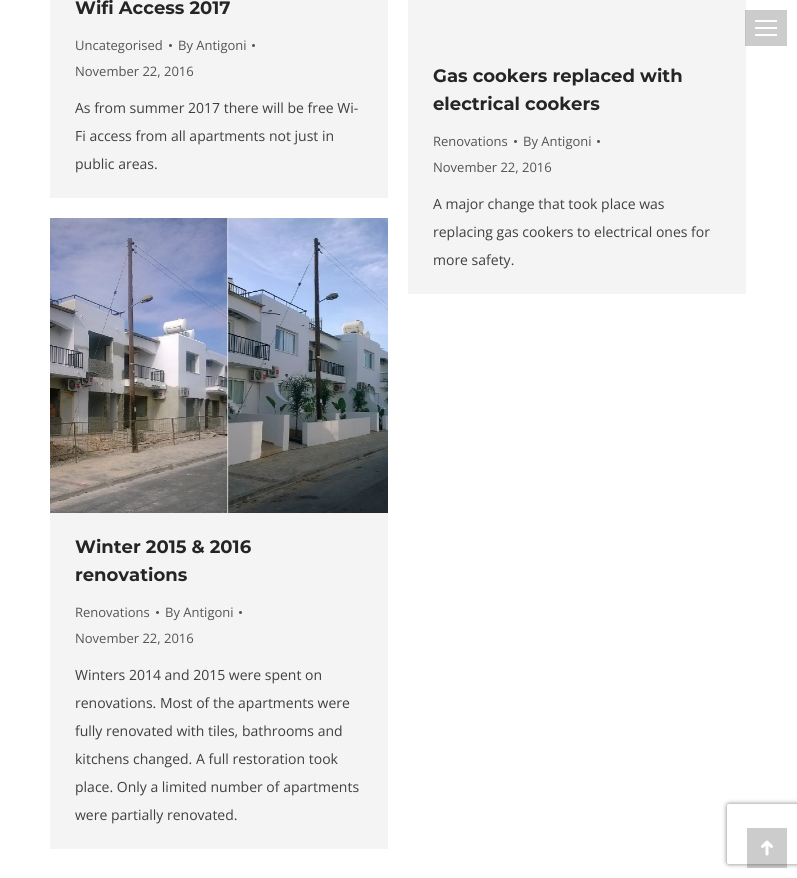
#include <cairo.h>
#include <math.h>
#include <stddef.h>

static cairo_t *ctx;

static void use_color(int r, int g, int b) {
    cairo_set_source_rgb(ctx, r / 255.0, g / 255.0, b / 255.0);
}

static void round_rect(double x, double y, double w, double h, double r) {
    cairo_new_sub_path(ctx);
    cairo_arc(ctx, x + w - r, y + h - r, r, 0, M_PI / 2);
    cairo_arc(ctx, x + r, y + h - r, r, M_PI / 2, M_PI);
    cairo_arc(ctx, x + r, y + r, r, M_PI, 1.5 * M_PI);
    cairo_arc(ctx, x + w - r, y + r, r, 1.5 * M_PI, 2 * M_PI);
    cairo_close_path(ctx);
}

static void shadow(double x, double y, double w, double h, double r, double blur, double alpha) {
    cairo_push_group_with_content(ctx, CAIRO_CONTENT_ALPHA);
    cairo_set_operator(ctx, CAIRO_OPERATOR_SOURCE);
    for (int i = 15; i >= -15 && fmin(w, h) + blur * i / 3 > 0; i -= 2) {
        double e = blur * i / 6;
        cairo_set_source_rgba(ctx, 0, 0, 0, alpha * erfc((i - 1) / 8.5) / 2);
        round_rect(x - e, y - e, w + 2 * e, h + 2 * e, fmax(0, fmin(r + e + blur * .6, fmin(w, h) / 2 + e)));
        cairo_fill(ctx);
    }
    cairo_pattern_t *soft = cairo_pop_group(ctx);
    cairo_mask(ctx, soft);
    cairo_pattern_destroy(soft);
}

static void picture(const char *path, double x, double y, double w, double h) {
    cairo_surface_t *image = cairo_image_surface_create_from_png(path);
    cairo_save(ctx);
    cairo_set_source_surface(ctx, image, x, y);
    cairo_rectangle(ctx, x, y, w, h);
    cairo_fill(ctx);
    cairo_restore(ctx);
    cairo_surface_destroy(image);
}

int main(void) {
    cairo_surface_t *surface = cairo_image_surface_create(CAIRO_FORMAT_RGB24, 797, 878);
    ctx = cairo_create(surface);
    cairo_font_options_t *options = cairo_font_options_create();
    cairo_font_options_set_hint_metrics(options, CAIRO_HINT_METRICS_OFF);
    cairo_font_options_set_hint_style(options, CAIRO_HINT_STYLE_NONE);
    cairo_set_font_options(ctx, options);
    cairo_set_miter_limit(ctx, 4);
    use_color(255, 255, 255);
    cairo_paint(ctx);
    use_color(204, 204, 204);
    cairo_rectangle(ctx, 746, 10, 41, 36);
    cairo_fill(ctx);
    use_color(244, 244, 244);
    cairo_rectangle(ctx, 50, 0, 338, 198);
    cairo_fill(ctx);
    cairo_select_font_face(ctx, "Montserrat", CAIRO_FONT_SLANT_NORMAL, CAIRO_FONT_WEIGHT_BOLD);
    cairo_set_font_size(ctx, 18);
    use_color(37, 37, 37);
    cairo_move_to(ctx, 75, 14);
    cairo_show_text(ctx, "Wifi Access 2017");
    cairo_select_font_face(ctx, "Open Sans", CAIRO_FONT_SLANT_NORMAL, CAIRO_FONT_WEIGHT_NORMAL);
    cairo_set_font_size(ctx, 13);
    use_color(84, 84, 84);
    cairo_move_to(ctx, 75, 50);
    cairo_show_text(ctx, "Uncategorised");
    cairo_new_path(ctx);
    cairo_arc(ctx, 170.5, 45.5, 1.5, 0, 2 * M_PI);
    cairo_fill(ctx);
    cairo_move_to(ctx, 178, 50);
    cairo_show_text(ctx, "By Antigoni");
    cairo_new_path(ctx);
    cairo_arc(ctx, 253.5, 45.5, 1.5, 0, 2 * M_PI);
    cairo_fill(ctx);
    cairo_move_to(ctx, 75, 76);
    cairo_show_text(ctx, "November 22, 2016");
    cairo_set_font_size(ctx, 14);
    use_color(63, 63, 63);
    cairo_move_to(ctx, 75, 113);
    cairo_show_text(ctx, "As from summer 2017 there will be free Wi-");
    cairo_move_to(ctx, 75, 141);
    cairo_show_text(ctx, "Fi access from all apartments not just in");
    cairo_move_to(ctx, 75, 169);
    cairo_show_text(ctx, "public areas.");
    use_color(244, 244, 244);
    cairo_rectangle(ctx, 408, 0, 338, 294);
    cairo_fill(ctx);
    use_color(195, 195, 195);
    cairo_rectangle(ctx, 745, 10, 1, 36);
    cairo_fill(ctx);
    cairo_select_font_face(ctx, "Montserrat", CAIRO_FONT_SLANT_NORMAL, CAIRO_FONT_WEIGHT_BOLD);
    cairo_set_font_size(ctx, 18);
    use_color(37, 37, 37);
    cairo_move_to(ctx, 433, 82);
    cairo_show_text(ctx, "Gas cookers replaced with");
    cairo_move_to(ctx, 433, 110);
    cairo_show_text(ctx, "electrical cookers");
    cairo_select_font_face(ctx, "Open Sans", CAIRO_FONT_SLANT_NORMAL, CAIRO_FONT_WEIGHT_NORMAL);
    cairo_set_font_size(ctx, 13);
    use_color(84, 84, 84);
    cairo_move_to(ctx, 433, 146);
    cairo_show_text(ctx, "Renovations");
    cairo_new_path(ctx);
    cairo_arc(ctx, 515.5, 141.5, 1.5, 0, 2 * M_PI);
    cairo_fill(ctx);
    cairo_move_to(ctx, 523, 146);
    cairo_show_text(ctx, "By Antigoni");
    cairo_new_path(ctx);
    cairo_arc(ctx, 598.5, 141.5, 1.5, 0, 2 * M_PI);
    cairo_fill(ctx);
    cairo_move_to(ctx, 433, 172);
    cairo_show_text(ctx, "November 22, 2016");
    cairo_set_font_size(ctx, 14);
    use_color(63, 63, 63);
    cairo_move_to(ctx, 433, 209);
    cairo_show_text(ctx, "A major change that took place was");
    cairo_move_to(ctx, 433, 237);
    cairo_show_text(ctx, "replacing gas cookers to electrical ones for");
    cairo_move_to(ctx, 433, 265);
    cairo_show_text(ctx, "more safety.");
    use_color(244, 244, 244);
    cairo_rectangle(ctx, 50, 513, 338, 336);
    cairo_fill(ctx);
    picture("img1.png", 50, 218, 338, 295);
    cairo_select_font_face(ctx, "Montserrat", CAIRO_FONT_SLANT_NORMAL, CAIRO_FONT_WEIGHT_BOLD);
    cairo_set_font_size(ctx, 18);
    use_color(37, 37, 37);
    cairo_move_to(ctx, 75, 553);
    cairo_show_text(ctx, "Winter 2015 & 2016");
    cairo_move_to(ctx, 75, 581);
    cairo_show_text(ctx, "renovations");
    cairo_select_font_face(ctx, "Open Sans", CAIRO_FONT_SLANT_NORMAL, CAIRO_FONT_WEIGHT_NORMAL);
    cairo_set_font_size(ctx, 13);
    use_color(84, 84, 84);
    cairo_move_to(ctx, 75, 617);
    cairo_show_text(ctx, "Renovations");
    cairo_new_path(ctx);
    cairo_arc(ctx, 157.5, 612.5, 1.5, 0, 2 * M_PI);
    cairo_fill(ctx);
    cairo_move_to(ctx, 165, 617);
    cairo_show_text(ctx, "By Antigoni");
    cairo_new_path(ctx);
    cairo_arc(ctx, 240.5, 612.5, 1.5, 0, 2 * M_PI);
    cairo_fill(ctx);
    cairo_move_to(ctx, 75, 643);
    cairo_show_text(ctx, "November 22, 2016");
    cairo_set_font_size(ctx, 14);
    use_color(63, 63, 63);
    cairo_move_to(ctx, 75, 680);
    cairo_show_text(ctx, "Winters 2014 and 2015 were spent on");
    cairo_move_to(ctx, 75, 708);
    cairo_show_text(ctx, "renovations. Most of the apartments were");
    cairo_move_to(ctx, 75, 736);
    cairo_show_text(ctx, "fully renovated with tiles, bathrooms and");
    cairo_move_to(ctx, 75, 764);
    cairo_show_text(ctx, "kitchens changed. A full restoration took");
    cairo_move_to(ctx, 75, 792);
    cairo_show_text(ctx, "place. Only a limited number of apartments");
    cairo_move_to(ctx, 75, 820);
    cairo_show_text(ctx, "were partially renovated.");
    use_color(255, 255, 255);
    cairo_rectangle(ctx, 755, 20, 22, 2);
    cairo_fill(ctx);
    cairo_rectangle(ctx, 755, 27, 22, 2);
    cairo_fill(ctx);
    cairo_rectangle(ctx, 755, 34, 22, 2);
    cairo_fill(ctx);
    cairo_save(ctx);
    cairo_set_fill_rule(ctx, CAIRO_FILL_RULE_EVEN_ODD);
    cairo_new_path(ctx);
    cairo_move_to(ctx, 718, 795);
    cairo_line_to(ctx, 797, 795);
    cairo_line_to(ctx, 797, 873);
    cairo_line_to(ctx, 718, 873);
    cairo_close_path(ctx);
    cairo_move_to(ctx, 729, 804);
    cairo_line_to(ctx, 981, 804);
    cairo_curve_to(ctx, 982, 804, 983, 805, 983, 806);
    cairo_line_to(ctx, 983, 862);
    cairo_curve_to(ctx, 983, 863, 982, 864, 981, 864);
    cairo_line_to(ctx, 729, 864);
    cairo_curve_to(ctx, 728, 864, 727, 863, 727, 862);
    cairo_line_to(ctx, 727, 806);
    cairo_curve_to(ctx, 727, 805, 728, 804, 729, 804);
    cairo_close_path(ctx);
    cairo_clip(ctx);
    use_color(128, 128, 128);
    shadow(727, 804, 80, 60, 2, 2.5, 1);
    cairo_restore(ctx);
    cairo_set_source_rgba(ctx, 0, 0, 0, 0.2);
    cairo_rectangle(ctx, 747, 828, 40, 40);
    cairo_fill(ctx);
    picture("img2.png", 761, 840, 12, 16);
    cairo_surface_write_to_png(surface, "result.png");
    cairo_font_options_destroy(options);
    cairo_destroy(ctx);
    cairo_surface_destroy(surface);
    return 0;
}
